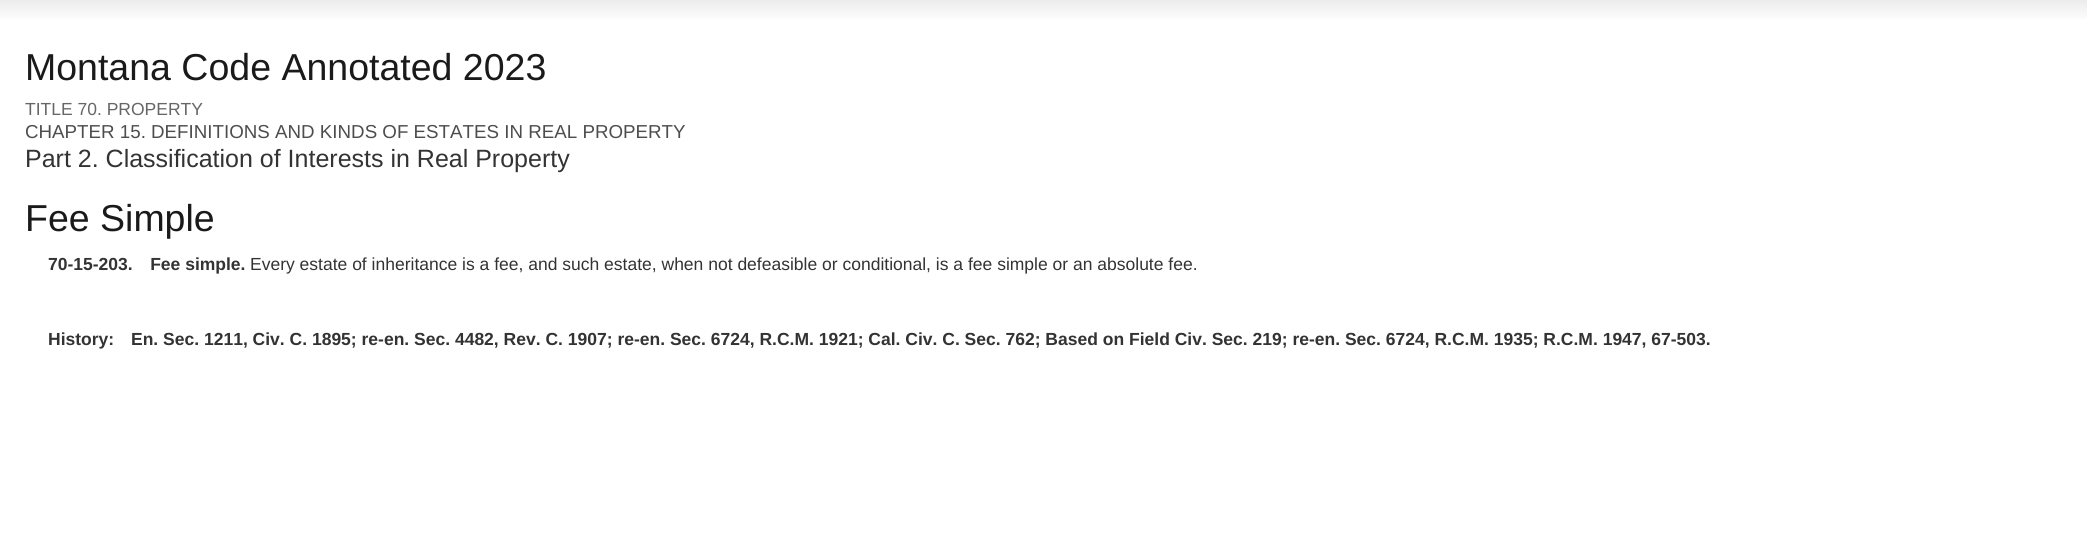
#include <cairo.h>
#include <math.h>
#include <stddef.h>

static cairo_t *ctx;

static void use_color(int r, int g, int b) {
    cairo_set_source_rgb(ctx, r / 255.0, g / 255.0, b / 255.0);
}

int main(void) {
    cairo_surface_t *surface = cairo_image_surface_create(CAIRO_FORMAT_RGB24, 2087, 555);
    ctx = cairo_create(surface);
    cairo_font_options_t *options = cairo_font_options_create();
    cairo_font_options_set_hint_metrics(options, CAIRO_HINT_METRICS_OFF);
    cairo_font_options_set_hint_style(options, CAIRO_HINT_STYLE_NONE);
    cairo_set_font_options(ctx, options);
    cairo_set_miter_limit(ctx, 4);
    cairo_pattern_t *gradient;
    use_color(255, 255, 255);
    cairo_paint(ctx);
    gradient = cairo_pattern_create_linear(1044, -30, 1044, 21);
    cairo_pattern_add_color_stop_rgba(gradient, 0, 0.824, 0.824, 0.824, 1);
    cairo_pattern_add_color_stop_rgba(gradient, 1, 0.996, 0.996, 0.996, 1);
    cairo_set_source(ctx, gradient);
    cairo_pattern_destroy(gradient);
    cairo_rectangle(ctx, 0, 0, 2087, 19);
    cairo_fill(ctx);
    cairo_select_font_face(ctx, "Liberation Sans", CAIRO_FONT_SLANT_NORMAL, CAIRO_FONT_WEIGHT_NORMAL);
    cairo_set_font_size(ctx, 37.5);
    use_color(26, 26, 26);
    cairo_move_to(ctx, 25, 80);
    cairo_show_text(ctx, "Montana Code Annotated 2023");
    cairo_set_font_size(ctx, 17.5);
    use_color(102, 102, 102);
    cairo_move_to(ctx, 25, 115);
    cairo_show_text(ctx, "TITLE 70. PROPERTY");
    cairo_set_font_size(ctx, 18.75);
    use_color(77, 77, 77);
    cairo_move_to(ctx, 25, 138);
    cairo_show_text(ctx, "CHAPTER 15. DEFINITIONS AND KINDS OF ESTATES IN REAL PROPERTY");
    cairo_set_font_size(ctx, 25);
    use_color(51, 51, 51);
    cairo_move_to(ctx, 25, 167);
    cairo_show_text(ctx, "Part 2. Classification of Interests in Real Property");
    cairo_set_font_size(ctx, 37.5);
    use_color(26, 26, 26);
    cairo_move_to(ctx, 25, 231);
    cairo_show_text(ctx, "Fee Simple");
    cairo_select_font_face(ctx, "Liberation Sans", CAIRO_FONT_SLANT_NORMAL, CAIRO_FONT_WEIGHT_BOLD);
    cairo_set_font_size(ctx, 17.5);
    use_color(51, 51, 51);
    cairo_move_to(ctx, 48, 270);
    cairo_show_text(ctx, "70-15-203. Fee simple.");
    cairo_select_font_face(ctx, "Liberation Sans", CAIRO_FONT_SLANT_NORMAL, CAIRO_FONT_WEIGHT_NORMAL);
    cairo_move_to(ctx, 250, 270);
    cairo_show_text(ctx, "Every estate of inheritance is a fee, and such estate, when not defeasible or conditional, is a fee simple or an absolute fee.");
    cairo_select_font_face(ctx, "Liberation Sans", CAIRO_FONT_SLANT_NORMAL, CAIRO_FONT_WEIGHT_BOLD);
    cairo_move_to(ctx, 48, 345);
    cairo_show_text(ctx, "History:");
    cairo_move_to(ctx, 131, 345);
    cairo_show_text(ctx, "En. Sec. 1211, Civ. C. 1895; re-en. Sec. 4482, Rev. C. 1907; re-en. Sec. 6724, R.C.M. 1921; Cal. Civ. C. Sec. 762; Based on Field Civ. Sec. 219; re-en. Sec. 6724, R.C.M. 1935; R.C.M. 1947, 67-503.");
    cairo_surface_write_to_png(surface, "result.png");
    cairo_font_options_destroy(options);
    cairo_destroy(ctx);
    cairo_surface_destroy(surface);
    return 0;
}
